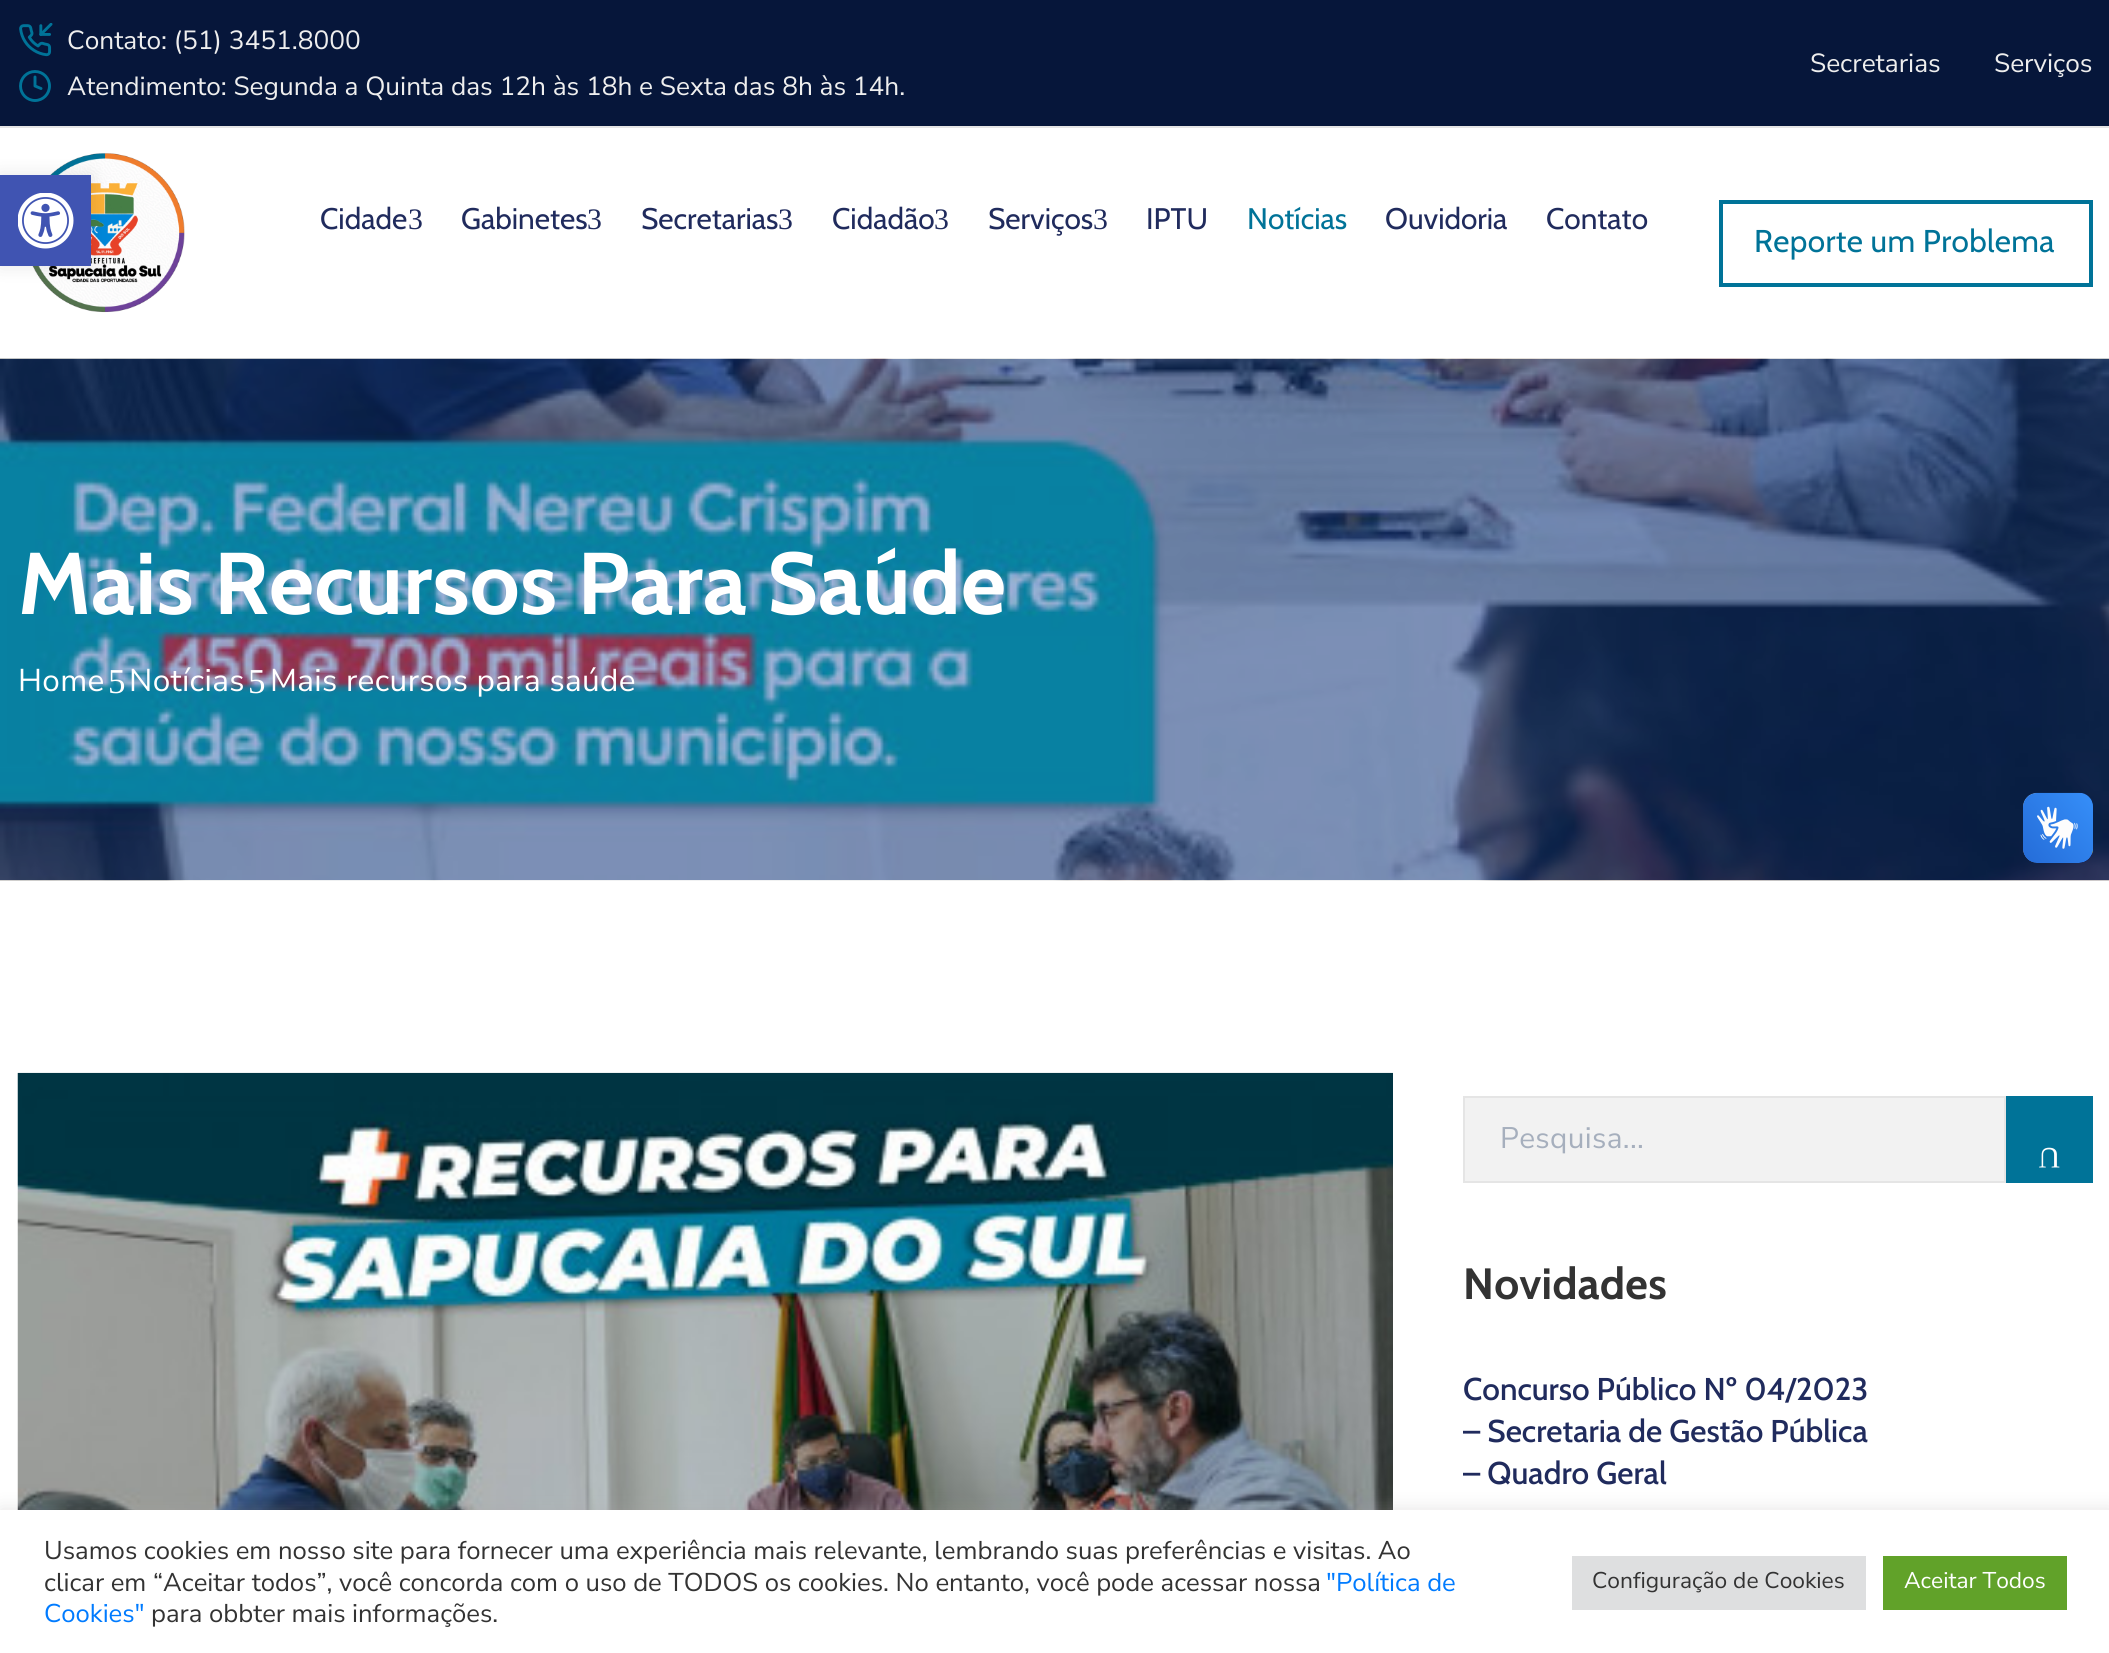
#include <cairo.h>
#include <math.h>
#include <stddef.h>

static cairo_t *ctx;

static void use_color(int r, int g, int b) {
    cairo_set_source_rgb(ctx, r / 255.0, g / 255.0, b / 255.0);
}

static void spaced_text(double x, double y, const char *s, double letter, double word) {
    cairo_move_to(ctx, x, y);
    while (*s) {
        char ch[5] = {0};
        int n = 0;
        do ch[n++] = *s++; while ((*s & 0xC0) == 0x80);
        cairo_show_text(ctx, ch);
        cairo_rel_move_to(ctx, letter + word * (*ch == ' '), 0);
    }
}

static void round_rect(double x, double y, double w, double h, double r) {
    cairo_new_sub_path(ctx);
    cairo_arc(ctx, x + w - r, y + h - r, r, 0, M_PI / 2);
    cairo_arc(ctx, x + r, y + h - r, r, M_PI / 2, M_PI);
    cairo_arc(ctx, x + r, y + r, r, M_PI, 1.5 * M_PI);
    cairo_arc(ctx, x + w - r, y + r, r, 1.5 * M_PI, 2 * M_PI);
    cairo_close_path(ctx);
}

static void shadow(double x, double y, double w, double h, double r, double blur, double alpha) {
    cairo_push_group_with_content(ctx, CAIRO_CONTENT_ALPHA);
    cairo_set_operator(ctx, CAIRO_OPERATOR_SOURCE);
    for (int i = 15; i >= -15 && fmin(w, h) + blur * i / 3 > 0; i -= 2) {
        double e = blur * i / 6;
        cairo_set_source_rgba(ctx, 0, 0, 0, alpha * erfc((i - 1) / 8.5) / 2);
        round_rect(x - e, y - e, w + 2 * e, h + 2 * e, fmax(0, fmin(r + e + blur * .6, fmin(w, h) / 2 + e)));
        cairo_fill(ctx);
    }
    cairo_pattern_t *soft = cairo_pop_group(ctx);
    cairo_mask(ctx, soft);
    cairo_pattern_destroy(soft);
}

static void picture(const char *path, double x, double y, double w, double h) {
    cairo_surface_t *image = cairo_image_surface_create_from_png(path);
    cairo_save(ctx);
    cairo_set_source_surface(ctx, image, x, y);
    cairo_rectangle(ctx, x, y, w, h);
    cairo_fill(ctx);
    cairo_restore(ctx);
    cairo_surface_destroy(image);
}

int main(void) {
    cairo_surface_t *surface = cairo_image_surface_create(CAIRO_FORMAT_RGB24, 2109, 1653);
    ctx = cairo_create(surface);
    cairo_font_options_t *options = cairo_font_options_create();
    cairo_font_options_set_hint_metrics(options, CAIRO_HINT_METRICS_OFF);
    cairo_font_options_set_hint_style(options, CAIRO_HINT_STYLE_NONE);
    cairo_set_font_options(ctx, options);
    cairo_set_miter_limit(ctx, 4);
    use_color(255, 255, 255);
    cairo_paint(ctx);
    use_color(6, 22, 58);
    cairo_rectangle(ctx, 0, 0, 2109, 126);
    cairo_fill(ctx);
    use_color(229, 229, 229);
    cairo_rectangle(ctx, 0, 126, 2109, 2);
    cairo_fill(ctx);
    picture("img1.png", 19, 23, 34, 34);
    cairo_select_font_face(ctx, "Nunito Sans", CAIRO_FONT_SLANT_NORMAL, CAIRO_FONT_WEIGHT_NORMAL);
    cairo_set_font_size(ctx, 26.25);
    use_color(238, 238, 238);
    cairo_move_to(ctx, 67, 49);
    cairo_show_text(ctx, "Contato: (51) 3451.8000");
    cairo_new_path(ctx);
    cairo_arc(ctx, 35, 86, 14.5, 0, 2 * M_PI);
    use_color(0, 115, 152);
    cairo_set_line_width(ctx, 2.9);
    cairo_stroke(ctx);
    cairo_new_path(ctx);
    cairo_move_to(ctx, 35, 77);
    cairo_line_to(ctx, 35, 86);
    cairo_line_to(ctx, 41, 88.5);
    cairo_set_line_cap(ctx, CAIRO_LINE_CAP_ROUND);
    cairo_set_line_join(ctx, CAIRO_LINE_JOIN_ROUND);
    cairo_stroke(ctx);
    use_color(238, 238, 238);
    cairo_move_to(ctx, 67, 95);
    cairo_show_text(ctx, "Atendimento: Segunda a Quinta das 12h às 18h e Sexta das 8h às 14h.");
    cairo_move_to(ctx, 1810, 72);
    cairo_show_text(ctx, "Secretarias");
    cairo_move_to(ctx, 1994, 72);
    cairo_show_text(ctx, "Serviços");
    picture("img2.png", 32, 153, 153, 160);
    cairo_select_font_face(ctx, "Cabin", CAIRO_FONT_SLANT_NORMAL, CAIRO_FONT_WEIGHT_NORMAL);
    cairo_set_font_size(ctx, 29.75);
    use_color(32, 43, 93);
    cairo_move_to(ctx, 320, 229);
    cairo_show_text(ctx, "Cidade");
    cairo_select_font_face(ctx, "Liberation Serif", CAIRO_FONT_SLANT_NORMAL, CAIRO_FONT_WEIGHT_NORMAL);
    cairo_move_to(ctx, 408, 229);
    cairo_show_text(ctx, "3");
    cairo_select_font_face(ctx, "Cabin", CAIRO_FONT_SLANT_NORMAL, CAIRO_FONT_WEIGHT_NORMAL);
    cairo_move_to(ctx, 461, 229);
    cairo_show_text(ctx, "Gabinetes");
    cairo_select_font_face(ctx, "Liberation Serif", CAIRO_FONT_SLANT_NORMAL, CAIRO_FONT_WEIGHT_NORMAL);
    cairo_move_to(ctx, 587, 229);
    cairo_show_text(ctx, "3");
    cairo_select_font_face(ctx, "Cabin", CAIRO_FONT_SLANT_NORMAL, CAIRO_FONT_WEIGHT_NORMAL);
    cairo_move_to(ctx, 641, 229);
    cairo_show_text(ctx, "Secretarias");
    cairo_select_font_face(ctx, "Liberation Serif", CAIRO_FONT_SLANT_NORMAL, CAIRO_FONT_WEIGHT_NORMAL);
    cairo_move_to(ctx, 778, 229);
    cairo_show_text(ctx, "3");
    cairo_select_font_face(ctx, "Cabin", CAIRO_FONT_SLANT_NORMAL, CAIRO_FONT_WEIGHT_NORMAL);
    cairo_move_to(ctx, 832, 229);
    cairo_show_text(ctx, "Cidadão");
    cairo_select_font_face(ctx, "Liberation Serif", CAIRO_FONT_SLANT_NORMAL, CAIRO_FONT_WEIGHT_NORMAL);
    cairo_move_to(ctx, 934, 229);
    cairo_show_text(ctx, "3");
    cairo_select_font_face(ctx, "Cabin", CAIRO_FONT_SLANT_NORMAL, CAIRO_FONT_WEIGHT_NORMAL);
    cairo_move_to(ctx, 988, 229);
    cairo_show_text(ctx, "Serviços");
    cairo_select_font_face(ctx, "Liberation Serif", CAIRO_FONT_SLANT_NORMAL, CAIRO_FONT_WEIGHT_NORMAL);
    cairo_move_to(ctx, 1093, 229);
    cairo_show_text(ctx, "3");
    cairo_select_font_face(ctx, "Cabin", CAIRO_FONT_SLANT_NORMAL, CAIRO_FONT_WEIGHT_NORMAL);
    cairo_move_to(ctx, 1146, 229);
    cairo_show_text(ctx, "IPTU");
    use_color(0, 115, 152);
    cairo_move_to(ctx, 1247, 229);
    cairo_show_text(ctx, "Notícias");
    use_color(32, 43, 93);
    cairo_move_to(ctx, 1385, 229);
    cairo_show_text(ctx, "Ouvidoria");
    cairo_move_to(ctx, 1546, 229);
    cairo_show_text(ctx, "Contato");
    cairo_rectangle(ctx, 1721, 202, 370, 83);
    use_color(0, 115, 152);
    cairo_set_line_width(ctx, 4);
    cairo_set_line_cap(ctx, CAIRO_LINE_CAP_BUTT);
    cairo_set_line_join(ctx, CAIRO_LINE_JOIN_MITER);
    cairo_stroke(ctx);
    cairo_set_font_size(ctx, 31.5);
    spaced_text(1754, 252, "Reporte um Problema", 0.35, 0);
    picture("img3.png", 0, 358, 2109, 523);
    cairo_select_font_face(ctx, "Cabin", CAIRO_FONT_SLANT_NORMAL, CAIRO_FONT_WEIGHT_BOLD);
    cairo_set_font_size(ctx, 87.5);
    use_color(255, 255, 255);
    spaced_text(18, 614, "Mais Recursos Para Saúde", 0.35, 0);
    cairo_select_font_face(ctx, "Nunito Sans", CAIRO_FONT_SLANT_NORMAL, CAIRO_FONT_WEIGHT_NORMAL);
    cairo_set_font_size(ctx, 31.5);
    spaced_text(18, 691, "Home", 0.35, 0);
    cairo_select_font_face(ctx, "Liberation Serif", CAIRO_FONT_SLANT_NORMAL, CAIRO_FONT_WEIGHT_NORMAL);
    cairo_set_font_size(ctx, 35);
    spaced_text(108, 693, "5", 0.35, 0);
    cairo_select_font_face(ctx, "Nunito Sans", CAIRO_FONT_SLANT_NORMAL, CAIRO_FONT_WEIGHT_NORMAL);
    cairo_set_font_size(ctx, 31.5);
    spaced_text(129, 691, "Notícias", 0.35, 0);
    cairo_select_font_face(ctx, "Liberation Serif", CAIRO_FONT_SLANT_NORMAL, CAIRO_FONT_WEIGHT_NORMAL);
    cairo_set_font_size(ctx, 35);
    spaced_text(248, 693, "5", 0.35, 0);
    cairo_select_font_face(ctx, "Nunito Sans", CAIRO_FONT_SLANT_NORMAL, CAIRO_FONT_WEIGHT_NORMAL);
    cairo_set_font_size(ctx, 31.5);
    spaced_text(270, 691, "Mais recursos para saúde", 0.35, 0);
    picture("img4.png", 17, 1072, 1376, 438);
    use_color(242, 242, 242);
    cairo_rectangle(ctx, 1464, 1097, 541, 85);
    cairo_fill_preserve(ctx);
    use_color(229, 229, 229);
    cairo_set_line_width(ctx, 2);
    cairo_stroke(ctx);
    cairo_set_font_size(ctx, 29.75);
    use_color(166, 175, 189);
    spaced_text(1500, 1148, "Pesquisa...", 0.35, 0);
    use_color(0, 115, 152);
    cairo_rectangle(ctx, 2006, 1096, 87, 87);
    cairo_fill(ctx);
    cairo_select_font_face(ctx, "Liberation Serif", CAIRO_FONT_SLANT_NORMAL, CAIRO_FONT_WEIGHT_NORMAL);
    use_color(255, 255, 255);
    cairo_save(ctx);
    cairo_translate(ctx, 2060, 1148);
    cairo_rotate(ctx, 180 * M_PI / 180);
    cairo_move_to(ctx, 0, 0);
    cairo_show_text(ctx, "U");
    cairo_restore(ctx);
    cairo_select_font_face(ctx, "Cabin", CAIRO_FONT_SLANT_NORMAL, CAIRO_FONT_WEIGHT_BOLD);
    cairo_set_font_size(ctx, 43.75);
    use_color(51, 51, 51);
    spaced_text(1463, 1299, "Novidades", 0.35, 0);
    cairo_save(ctx);
    cairo_rectangle(ctx, 1463, 1377, 630, 202);
    cairo_clip(ctx);
    cairo_select_font_face(ctx, "Cabin Medium", CAIRO_FONT_SLANT_NORMAL, CAIRO_FONT_WEIGHT_NORMAL);
    cairo_set_font_size(ctx, 31.5);
    use_color(32, 43, 93);
    cairo_move_to(ctx, 1463, 1400);
    cairo_show_text(ctx, "Concurso Público Nº 04/2023");
    cairo_restore(ctx);
    cairo_select_font_face(ctx, "Cabin Medium", CAIRO_FONT_SLANT_NORMAL, CAIRO_FONT_WEIGHT_NORMAL);
    cairo_set_font_size(ctx, 31.5);
    use_color(32, 43, 93);
    cairo_move_to(ctx, 1463, 1442);
    cairo_show_text(ctx, "– Secretaria de Gestão Pública");
    cairo_move_to(ctx, 1463, 1484);
    cairo_show_text(ctx, "– Quadro Geral");
    use_color(0, 0, 0);
    shadow(0, 175, 91, 91, 0, 9, 0.1);
    use_color(64, 84, 178);
    cairo_rectangle(ctx, 0, 175, 91, 91);
    cairo_fill(ctx);
    picture("img5.png", 18, 193, 56, 56);
    picture("img6.png", 2023, 792, 70, 71);
    picture("img7.png", 2023, 793, 70, 70);
    use_color(172, 171, 171);
    shadow(0, 1509, 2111, 143, 0, 9, 0.3);
    use_color(255, 255, 255);
    cairo_rectangle(ctx, 0, 1510, 2109, 143);
    cairo_fill(ctx);
    cairo_select_font_face(ctx, "Nunito Sans", CAIRO_FONT_SLANT_NORMAL, CAIRO_FONT_WEIGHT_NORMAL);
    cairo_set_font_size(ctx, 25.67);
    use_color(51, 51, 51);
    cairo_move_to(ctx, 44, 1559);
    cairo_show_text(ctx, "Usamos cookies em nosso site para fornecer uma experiência mais relevante, lembrando suas preferências e visitas. Ao");
    cairo_move_to(ctx, 44, 1591);
    cairo_show_text(ctx, "clicar em “Aceitar todos”, você concorda com o uso de TODOS os cookies. No entanto, você pode acessar nossa");
    use_color(0, 123, 255);
    cairo_move_to(ctx, 1326, 1591);
    cairo_show_text(ctx, "\"Política de");
    cairo_move_to(ctx, 44, 1622);
    cairo_show_text(ctx, "Cookies\"");
    use_color(51, 51, 51);
    cairo_move_to(ctx, 151, 1622);
    cairo_show_text(ctx, "para obbter mais informações.");
    use_color(222, 223, 224);
    cairo_rectangle(ctx, 1572, 1556, 294, 54);
    cairo_fill(ctx);
    cairo_set_font_size(ctx, 22.75);
    use_color(51, 51, 51);
    cairo_move_to(ctx, 1592, 1588);
    cairo_show_text(ctx, "Configuração de Cookies");
    use_color(97, 162, 41);
    cairo_rectangle(ctx, 1883, 1556, 184, 54);
    cairo_fill(ctx);
    use_color(255, 255, 255);
    cairo_move_to(ctx, 1904, 1588);
    cairo_show_text(ctx, "Aceitar Todos");
    cairo_surface_write_to_png(surface, "result.png");
    cairo_font_options_destroy(options);
    cairo_destroy(ctx);
    cairo_surface_destroy(surface);
    return 0;
}
